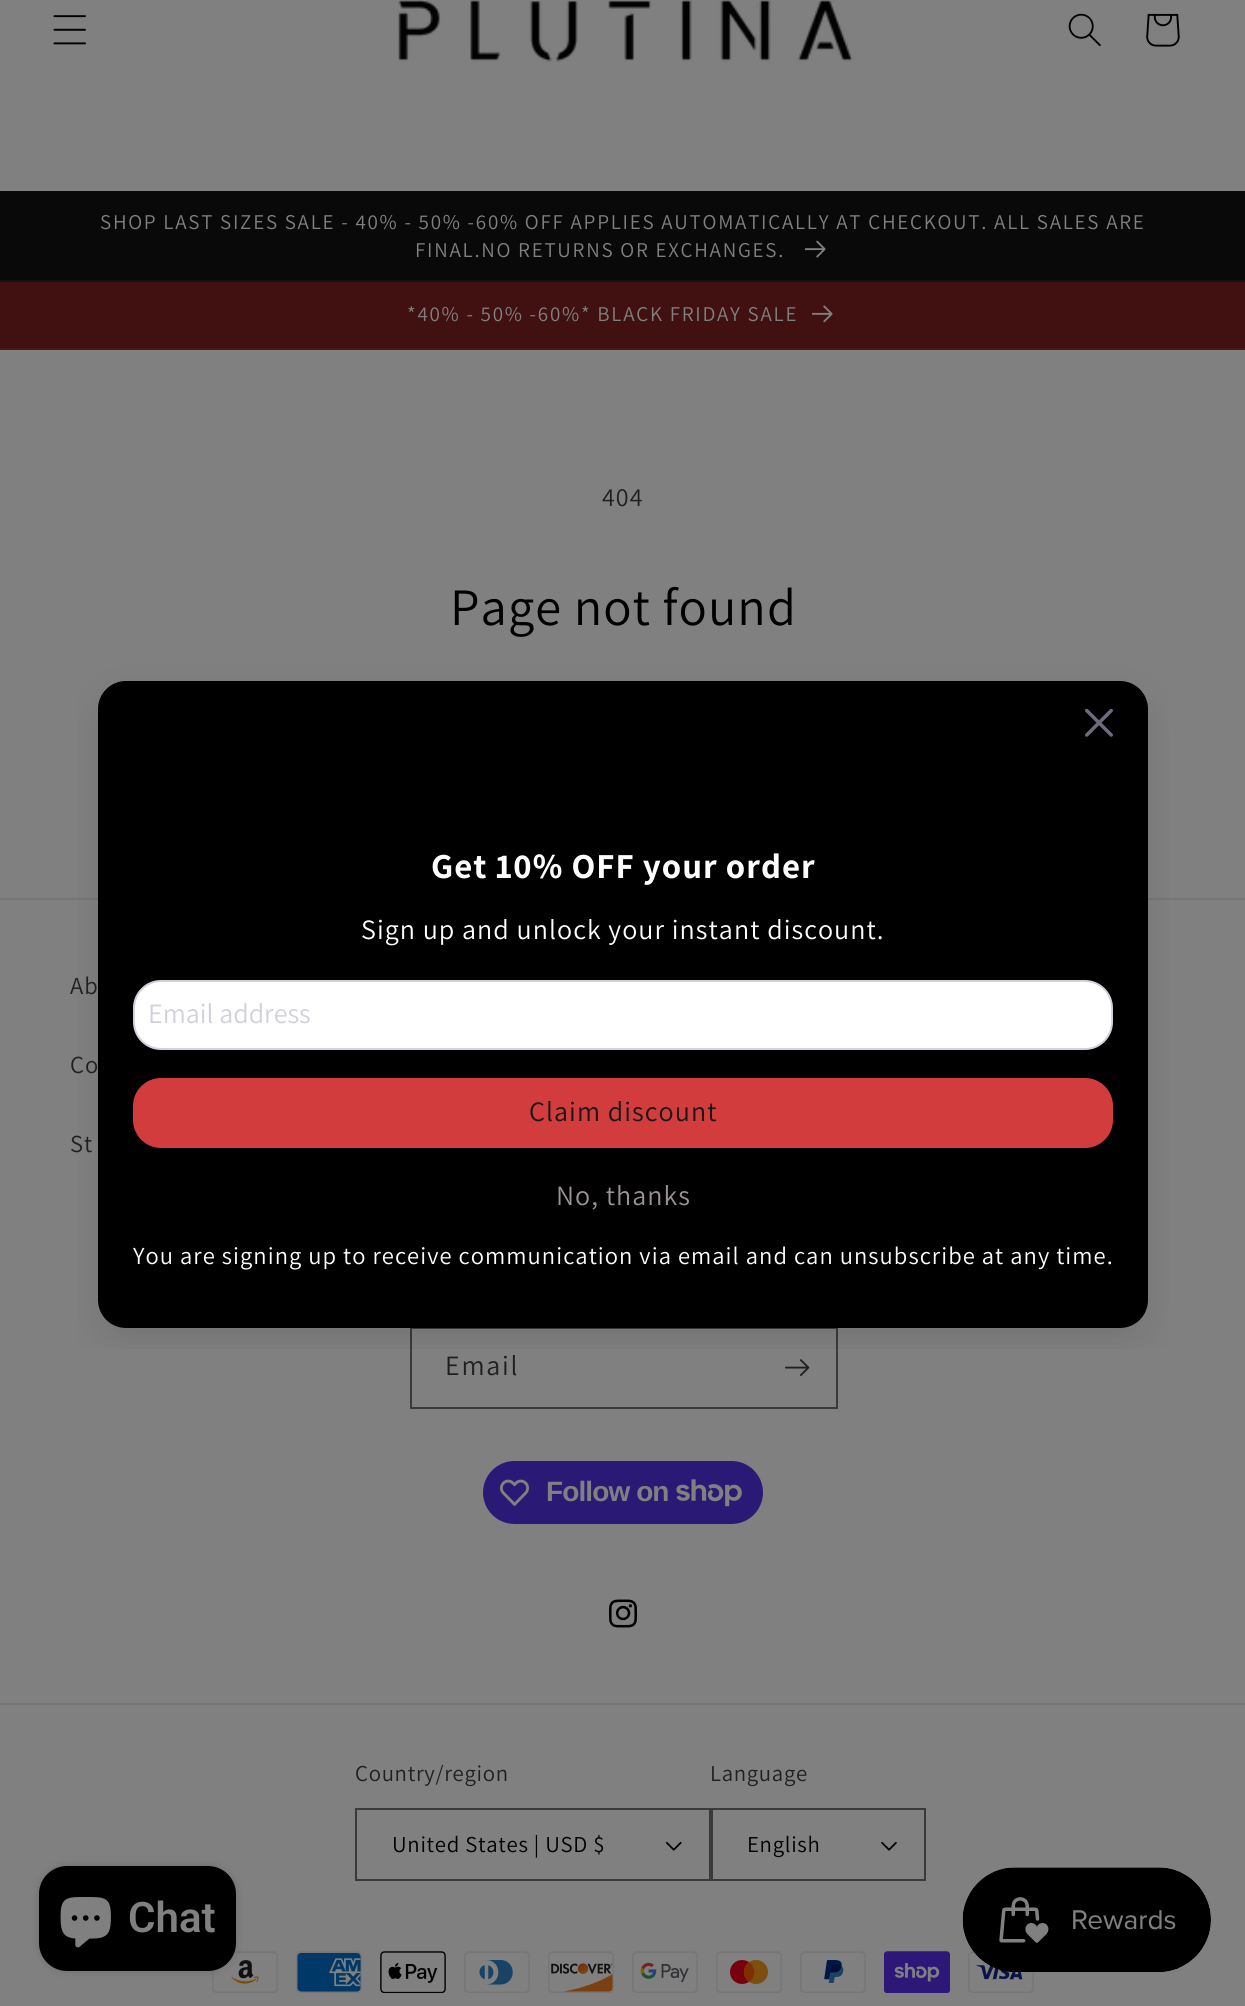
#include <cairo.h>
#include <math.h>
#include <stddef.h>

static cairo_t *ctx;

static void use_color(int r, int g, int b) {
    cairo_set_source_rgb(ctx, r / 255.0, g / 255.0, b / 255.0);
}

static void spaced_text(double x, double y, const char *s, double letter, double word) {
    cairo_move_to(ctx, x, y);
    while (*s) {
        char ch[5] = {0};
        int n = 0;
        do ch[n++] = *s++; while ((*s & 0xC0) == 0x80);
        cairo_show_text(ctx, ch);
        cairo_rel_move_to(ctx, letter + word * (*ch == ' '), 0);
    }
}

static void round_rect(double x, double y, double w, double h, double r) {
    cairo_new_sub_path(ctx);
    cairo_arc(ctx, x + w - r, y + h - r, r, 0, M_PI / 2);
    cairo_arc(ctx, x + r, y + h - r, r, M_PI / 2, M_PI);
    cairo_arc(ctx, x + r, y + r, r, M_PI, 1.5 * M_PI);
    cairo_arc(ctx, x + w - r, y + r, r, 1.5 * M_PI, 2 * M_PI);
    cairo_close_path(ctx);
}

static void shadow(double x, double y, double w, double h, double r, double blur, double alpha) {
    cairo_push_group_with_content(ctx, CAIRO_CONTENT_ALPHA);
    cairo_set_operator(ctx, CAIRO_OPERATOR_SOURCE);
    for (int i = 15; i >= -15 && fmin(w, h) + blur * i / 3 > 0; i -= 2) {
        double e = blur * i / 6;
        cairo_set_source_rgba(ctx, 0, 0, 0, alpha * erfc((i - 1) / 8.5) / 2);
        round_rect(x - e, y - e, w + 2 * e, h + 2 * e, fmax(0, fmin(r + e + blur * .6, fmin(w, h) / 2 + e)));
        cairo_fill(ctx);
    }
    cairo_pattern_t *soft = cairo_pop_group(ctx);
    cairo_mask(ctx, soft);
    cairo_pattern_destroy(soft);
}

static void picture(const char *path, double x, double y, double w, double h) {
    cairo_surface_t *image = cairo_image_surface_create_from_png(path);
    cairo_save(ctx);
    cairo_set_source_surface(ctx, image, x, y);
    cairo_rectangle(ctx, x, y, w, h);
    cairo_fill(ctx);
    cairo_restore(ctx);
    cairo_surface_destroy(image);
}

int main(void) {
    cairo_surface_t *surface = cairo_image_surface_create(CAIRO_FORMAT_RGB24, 1245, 2006);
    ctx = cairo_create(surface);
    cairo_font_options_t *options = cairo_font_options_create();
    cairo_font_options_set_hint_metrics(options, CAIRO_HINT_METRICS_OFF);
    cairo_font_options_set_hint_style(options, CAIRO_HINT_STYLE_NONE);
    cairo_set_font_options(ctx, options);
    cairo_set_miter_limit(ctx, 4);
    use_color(128, 128, 128);
    cairo_paint(ctx);
    picture("img1.png", 53, 15, 33, 30);
    picture("img2.png", 398, 0, 455, 62);
    picture("img3.png", 1068, 13, 33, 34);
    picture("img4.png", 1146, 13, 34, 34);
    use_color(9, 9, 9);
    cairo_rectangle(ctx, 0, 191, 1245, 89);
    cairo_fill(ctx);
    use_color(19, 19, 19);
    cairo_rectangle(ctx, 0, 280, 1245, 2);
    cairo_fill(ctx);
    cairo_select_font_face(ctx, "Assistant", CAIRO_FONT_SLANT_NORMAL, CAIRO_FONT_WEIGHT_NORMAL);
    cairo_set_font_size(ctx, 21);
    use_color(128, 128, 128);
    spaced_text(100, 229, "SHOP LAST SIZES SALE - 40% - 50% -60% OFF APPLIES AUTOMATICALLY AT CHECKOUT. ALL SALES ARE", 1.75, 0);
    spaced_text(415, 257, "FINAL.NO RETURNS OR EXCHANGES.", 1.75, 0);
    picture("img5.png", 805, 240, 21, 18);
    use_color(65, 16, 16);
    cairo_rectangle(ctx, 0, 282, 1245, 66);
    cairo_fill(ctx);
    use_color(70, 25, 25);
    cairo_rectangle(ctx, 0, 348, 1245, 2);
    cairo_fill(ctx);
    use_color(128, 128, 128);
    spaced_text(407, 321, "*40% - 50% -60%* BLACK FRIDAY SALE", 1.75, 0);
    picture("img6.png", 812, 305, 21, 18);
    cairo_set_font_size(ctx, 26);
    use_color(32, 32, 32);
    spaced_text(602, 506, "404", 1.05, 0);
    cairo_set_font_size(ctx, 52.5);
    use_color(0, 0, 0);
    spaced_text(450, 625, "Page not found", 1.05, 0);
    use_color(118, 118, 118);
    cairo_rectangle(ctx, 0, 898, 1245, 2);
    cairo_fill(ctx);
    cairo_rectangle(ctx, 411, 1328, 426, 80);
    use_color(58, 58, 58);
    cairo_stroke(ctx);
    picture("img8.png", 785, 1359, 25, 17);
    cairo_save(ctx);
    cairo_rectangle(ctx, 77, 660, 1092, 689);
    cairo_clip(ctx);
    use_color(18, 17, 39);
    shadow(98, 695, 1050, 647, 28, 17.5, 0.1);
    cairo_restore(ctx);
    use_color(0, 0, 0);
    round_rect(98, 681, 1050, 647, 28);
    cairo_fill(ctx);
    picture("img7.png", 1085, 709, 28, 28);
    cairo_select_font_face(ctx, "Assistant", CAIRO_FONT_SLANT_NORMAL, CAIRO_FONT_WEIGHT_BOLD);
    cairo_set_font_size(ctx, 35);
    use_color(255, 255, 255);
    spaced_text(431, 878, "Get 10% OFF your order", 1.05, 0);
    cairo_select_font_face(ctx, "Assistant", CAIRO_FONT_SLANT_NORMAL, CAIRO_FONT_WEIGHT_NORMAL);
    cairo_set_font_size(ctx, 28);
    spaced_text(361, 939, "Sign up and unlock your instant discount.", 1.05, 0);
    round_rect(134, 981, 978, 68, 27);
    cairo_fill_preserve(ctx);
    use_color(209, 209, 219);
    cairo_stroke(ctx);
    cairo_move_to(ctx, 148, 1023);
    cairo_show_text(ctx, "Email address");
    use_color(210, 60, 60);
    round_rect(133, 1078, 980, 70, 28);
    cairo_fill(ctx);
    use_color(23, 23, 23);
    spaced_text(529, 1121, "Claim discount", 1.05, 0);
    use_color(155, 147, 147);
    spaced_text(556, 1205, "No, thanks", 1.05, 0);
    cairo_set_font_size(ctx, 24.5);
    use_color(255, 255, 255);
    spaced_text(133, 1264, "You are signing up to receive communication via email and can unsubscribe at any time.", 1.05, 0);
    use_color(32, 32, 32);
    spaced_text(70, 994, "Ab", 1.05, 0);
    spaced_text(70, 1073, "Co", 1.05, 0);
    spaced_text(70, 1152, "St", 1.05, 0);
    cairo_set_font_size(ctx, 28);
    spaced_text(445, 1375, "Email", 1.75, 0);
    use_color(42, 26, 118);
    round_rect(483, 1461, 280, 63, 31.5);
    cairo_fill(ctx);
    picture("img9.png", 499, 1479, 31, 27);
    cairo_select_font_face(ctx, "Liberation Sans", CAIRO_FONT_SLANT_NORMAL, CAIRO_FONT_WEIGHT_BOLD);
    use_color(128, 128, 128);
    spaced_text(546, 1501, "Follow on", -0.9, 0);
    picture("img10.png", 676, 1479, 66, 28);
    picture("img11.png", 609, 1599, 28, 29);
    use_color(118, 118, 118);
    cairo_rectangle(ctx, 0, 1703, 1245, 2);
    cairo_fill(ctx);
    cairo_select_font_face(ctx, "Assistant", CAIRO_FONT_SLANT_NORMAL, CAIRO_FONT_WEIGHT_NORMAL);
    cairo_set_font_size(ctx, 22.75);
    use_color(32, 32, 32);
    spaced_text(355, 1781, "Country/region", 0.7, 0);
    picture("img12.png", 665, 1841, 17, 10);
    cairo_rectangle(ctx, 356, 1809, 354, 71);
    use_color(58, 58, 58);
    cairo_stroke(ctx);
    use_color(0, 0, 0);
    spaced_text(392, 1852, "United States | USD $", 0.7, 0);
    use_color(32, 32, 32);
    spaced_text(710, 1781, "Language", 0.7, 0);
    picture("img13.png", 881, 1842, 16, 9);
    cairo_rectangle(ctx, 712, 1809, 213, 71);
    use_color(58, 58, 58);
    cairo_stroke(ctx);
    use_color(0, 0, 0);
    spaced_text(747, 1852, "English", 0.7, 0);
    picture("img14.png", 212, 1951, 66, 42);
    picture("img15.png", 296, 1951, 66, 42);
    picture("img16.png", 380, 1951, 66, 42);
    picture("img17.png", 464, 1951, 66, 42);
    picture("img18.png", 548, 1951, 66, 42);
    picture("img19.png", 632, 1951, 66, 42);
    picture("img20.png", 716, 1951, 66, 42);
    picture("img21.png", 800, 1951, 66, 42);
    picture("img22.png", 884, 1951, 66, 42);
    picture("img23.png", 968, 1951, 66, 42);
    use_color(0, 0, 0);
    shadow(39, 1866, 197, 105, 28, 4.5, 0.15);
    use_color(0, 0, 0);
    round_rect(39, 1866, 197, 105, 28);
    cairo_fill(ctx);
    picture("img24.png", 60, 1897, 51, 51);
    cairo_select_font_face(ctx, "Roboto SemiBold", CAIRO_FONT_SLANT_NORMAL, CAIRO_FONT_WEIGHT_NORMAL);
    cairo_set_font_size(ctx, 42);
    use_color(128, 128, 128);
    cairo_move_to(ctx, 128, 1932);
    cairo_show_text(ctx, "Chat");
    picture("img25.png", 962, 1867, 249, 105);
    cairo_surface_write_to_png(surface, "result.png");
    cairo_font_options_destroy(options);
    cairo_destroy(ctx);
    cairo_surface_destroy(surface);
    return 0;
}
